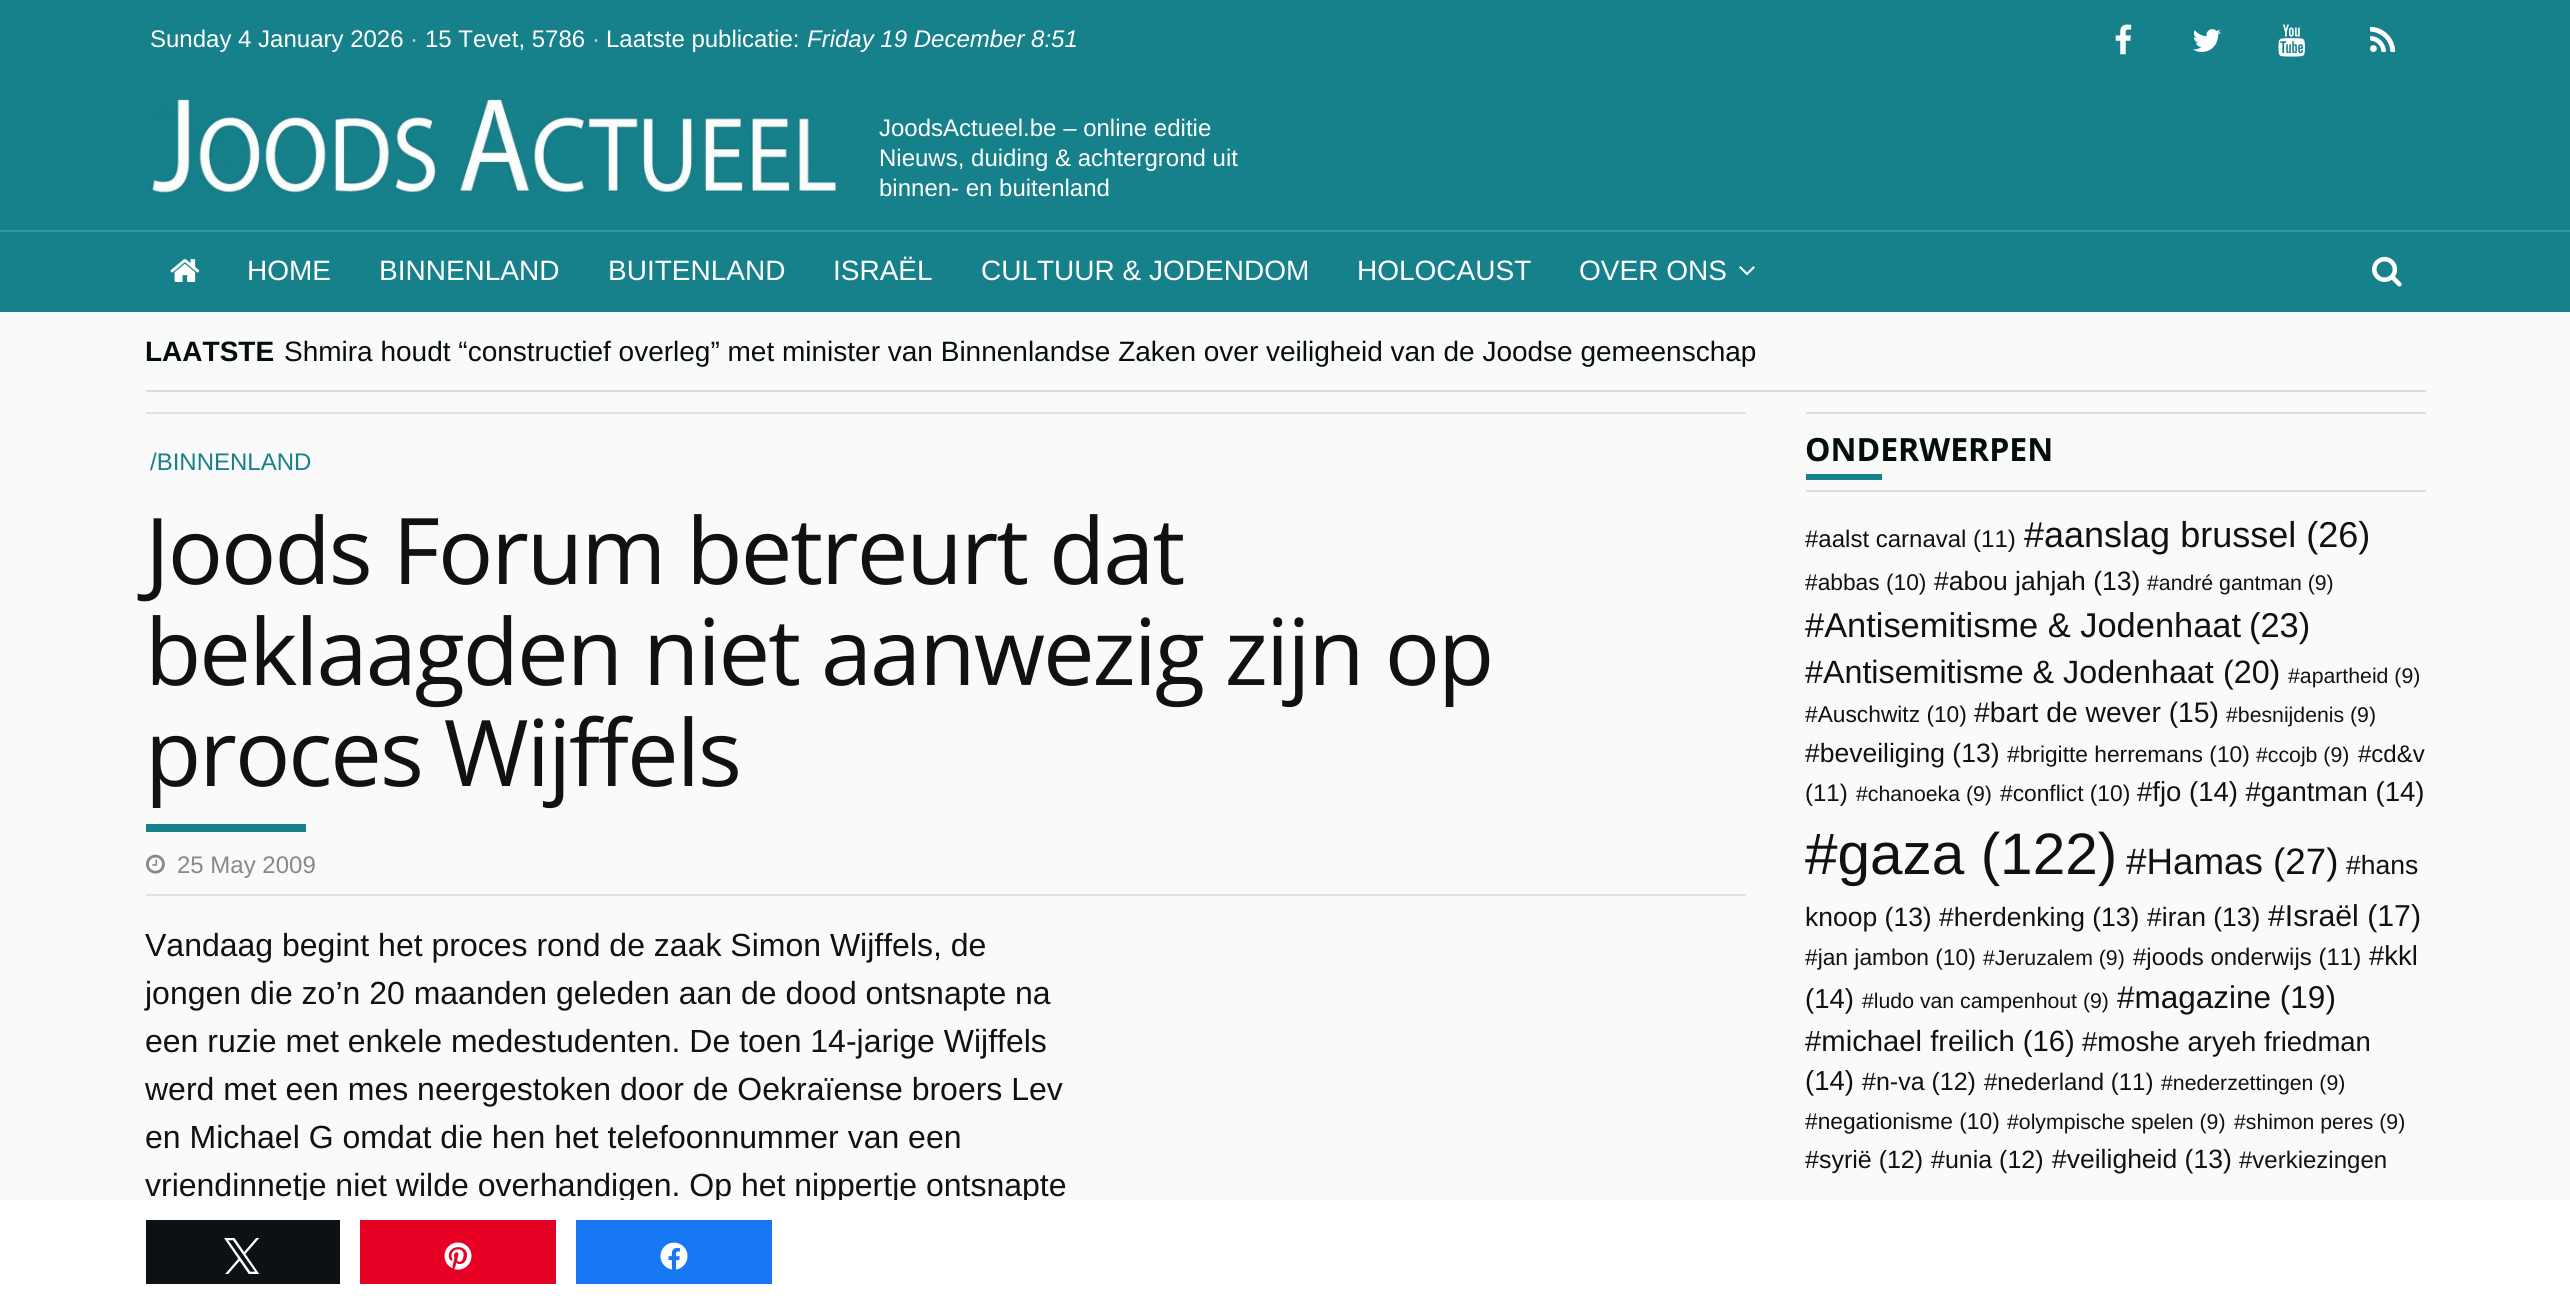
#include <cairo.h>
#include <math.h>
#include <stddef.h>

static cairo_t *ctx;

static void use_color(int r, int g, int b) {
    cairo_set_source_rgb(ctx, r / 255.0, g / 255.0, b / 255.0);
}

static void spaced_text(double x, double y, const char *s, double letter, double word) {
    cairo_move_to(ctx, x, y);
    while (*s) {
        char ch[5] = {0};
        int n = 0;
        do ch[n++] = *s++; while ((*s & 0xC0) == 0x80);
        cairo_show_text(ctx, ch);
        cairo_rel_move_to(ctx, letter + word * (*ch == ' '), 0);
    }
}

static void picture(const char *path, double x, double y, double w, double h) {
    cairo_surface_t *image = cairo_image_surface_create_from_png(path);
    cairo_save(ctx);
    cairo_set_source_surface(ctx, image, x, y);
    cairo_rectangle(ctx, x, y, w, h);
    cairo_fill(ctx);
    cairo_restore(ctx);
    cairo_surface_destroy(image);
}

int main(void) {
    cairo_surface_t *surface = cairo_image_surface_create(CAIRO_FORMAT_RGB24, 2570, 1308);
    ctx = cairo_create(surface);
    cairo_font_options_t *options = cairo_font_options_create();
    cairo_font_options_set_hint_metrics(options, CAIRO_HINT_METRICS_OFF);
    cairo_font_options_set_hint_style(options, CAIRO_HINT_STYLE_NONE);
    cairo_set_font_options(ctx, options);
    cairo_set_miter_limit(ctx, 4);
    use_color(250, 250, 250);
    cairo_paint(ctx);
    use_color(22, 129, 139);
    cairo_rectangle(ctx, 0, 0, 2570, 312);
    cairo_fill(ctx);
    cairo_select_font_face(ctx, "Liberation Sans", CAIRO_FONT_SLANT_NORMAL, CAIRO_FONT_WEIGHT_NORMAL);
    cairo_set_font_size(ctx, 24);
    use_color(255, 255, 255);
    cairo_move_to(ctx, 150, 47);
    cairo_show_text(ctx, "Sunday 4 January 2026");
    use_color(204, 204, 204);
    cairo_move_to(ctx, 410, 47);
    cairo_show_text(ctx, "·");
    use_color(255, 255, 255);
    cairo_move_to(ctx, 425, 47);
    cairo_show_text(ctx, "15 Tevet, 5786");
    use_color(204, 204, 204);
    cairo_move_to(ctx, 592, 47);
    cairo_show_text(ctx, "·");
    use_color(255, 255, 255);
    cairo_move_to(ctx, 606, 47);
    cairo_show_text(ctx, "Laatste publicatie:");
    cairo_select_font_face(ctx, "Liberation Sans", CAIRO_FONT_SLANT_ITALIC, CAIRO_FONT_WEIGHT_NORMAL);
    cairo_move_to(ctx, 807, 47);
    cairo_show_text(ctx, "Friday 19 December 8:51");
    picture("img1.png", 2115, 24, 17, 31);
    picture("img2.png", 2193, 29, 28, 23);
    picture("img3.png", 2278, 24, 27, 33);
    picture("img4.png", 2370, 26, 26, 26);
    picture("img5.png", 146, 98, 694, 96);
    cairo_select_font_face(ctx, "Liberation Sans", CAIRO_FONT_SLANT_NORMAL, CAIRO_FONT_WEIGHT_NORMAL);
    cairo_move_to(ctx, 879, 136);
    cairo_show_text(ctx, "JoodsActueel.be – online editie");
    cairo_move_to(ctx, 879, 166);
    cairo_show_text(ctx, "Nieuws, duiding & achtergrond uit");
    cairo_move_to(ctx, 879, 196);
    cairo_show_text(ctx, "binnen- en buitenland");
    use_color(57, 148, 156);
    cairo_rectangle(ctx, 0, 230, 2570, 2);
    cairo_fill(ctx);
    picture("img6.png", 170, 259, 30, 23);
    cairo_set_font_size(ctx, 28);
    use_color(255, 255, 255);
    cairo_move_to(ctx, 247, 280);
    cairo_show_text(ctx, "HOME");
    cairo_move_to(ctx, 379, 280);
    cairo_show_text(ctx, "BINNENLAND");
    cairo_move_to(ctx, 608, 280);
    cairo_show_text(ctx, "BUITENLAND");
    cairo_move_to(ctx, 833, 280);
    cairo_show_text(ctx, "ISRAËL");
    cairo_move_to(ctx, 981, 280);
    cairo_show_text(ctx, "CULTUUR & JODENDOM");
    cairo_move_to(ctx, 1357, 280);
    cairo_show_text(ctx, "HOLOCAUST");
    cairo_move_to(ctx, 1579, 280);
    cairo_show_text(ctx, "OVER ONS");
    picture("img7.png", 1739, 266, 16, 10);
    picture("img8.png", 2372, 256, 30, 31);
    use_color(219, 219, 219);
    cairo_rectangle(ctx, 146, 390, 2280, 2);
    cairo_fill(ctx);
    cairo_select_font_face(ctx, "Liberation Sans", CAIRO_FONT_SLANT_NORMAL, CAIRO_FONT_WEIGHT_BOLD);
    use_color(5, 14, 14);
    cairo_move_to(ctx, 145, 361);
    cairo_show_text(ctx, "LAATSTE");
    cairo_select_font_face(ctx, "Liberation Sans", CAIRO_FONT_SLANT_NORMAL, CAIRO_FONT_WEIGHT_NORMAL);
    cairo_move_to(ctx, 284, 361);
    cairo_show_text(ctx, "Shmira houdt “constructief overleg” met minister van Binnenlandse Zaken over veiligheid van de Joodse gemeenschap");
    use_color(225, 225, 225);
    cairo_rectangle(ctx, 146, 412, 1600, 2);
    cairo_fill(ctx);
    cairo_set_font_size(ctx, 24);
    use_color(22, 129, 139);
    cairo_move_to(ctx, 150, 470);
    cairo_show_text(ctx, "/BINNENLAND");
    cairo_select_font_face(ctx, "Open Sans", CAIRO_FONT_SLANT_NORMAL, CAIRO_FONT_WEIGHT_NORMAL);
    cairo_set_font_size(ctx, 92);
    use_color(17, 17, 17);
    spaced_text(145, 584, "Joods Forum betreurt dat", -2, 0);
    spaced_text(145, 685, "beklaagden niet aanwezig zijn op", -2, 0);
    spaced_text(145, 786, "proces Wijffels", -2, 0);
    use_color(22, 129, 139);
    cairo_rectangle(ctx, 146, 824, 160, 8);
    cairo_fill(ctx);
    use_color(225, 225, 225);
    cairo_rectangle(ctx, 146, 894, 1600, 2);
    cairo_fill(ctx);
    picture("img9.png", 146, 854, 19, 20);
    cairo_select_font_face(ctx, "Liberation Sans", CAIRO_FONT_SLANT_NORMAL, CAIRO_FONT_WEIGHT_NORMAL);
    cairo_set_font_size(ctx, 24);
    use_color(136, 136, 136);
    cairo_move_to(ctx, 177, 873);
    cairo_show_text(ctx, "25 May 2009");
    cairo_set_font_size(ctx, 32);
    use_color(17, 17, 17);
    cairo_move_to(ctx, 145, 956);
    cairo_show_text(ctx, "Vandaag begint het proces rond de zaak Simon Wijffels, de");
    cairo_move_to(ctx, 145, 1004);
    cairo_show_text(ctx, "jongen die zo’n 20 maanden geleden aan de dood ontsnapte na");
    cairo_move_to(ctx, 145, 1052);
    cairo_show_text(ctx, "een ruzie met enkele medestudenten. De toen 14-jarige Wijffels");
    cairo_move_to(ctx, 145, 1100);
    cairo_show_text(ctx, "werd met een mes neergestoken door de Oekraïense broers Lev");
    cairo_move_to(ctx, 145, 1148);
    cairo_show_text(ctx, "en Michael G omdat die hen het telefoonnummer van een");
    cairo_move_to(ctx, 145, 1196);
    cairo_show_text(ctx, "vriendinnetje niet wilde overhandigen. Op het nippertje ontsnapte");
    use_color(219, 219, 219);
    cairo_rectangle(ctx, 1806, 412, 620, 2);
    cairo_fill(ctx);
    cairo_rectangle(ctx, 1806, 490, 620, 2);
    cairo_fill(ctx);
    cairo_select_font_face(ctx, "Open Sans", CAIRO_FONT_SLANT_NORMAL, CAIRO_FONT_WEIGHT_BOLD);
    use_color(5, 14, 14);
    cairo_move_to(ctx, 1805, 461);
    cairo_show_text(ctx, "ONDERWERPEN");
    use_color(22, 129, 139);
    cairo_rectangle(ctx, 1806, 474, 76, 6);
    cairo_fill(ctx);
    cairo_select_font_face(ctx, "Liberation Sans", CAIRO_FONT_SLANT_NORMAL, CAIRO_FONT_WEIGHT_NORMAL);
    cairo_set_font_size(ctx, 24);
    use_color(17, 17, 17);
    cairo_move_to(ctx, 1805, 547);
    cairo_show_text(ctx, "#aalst carnaval (11)");
    cairo_set_font_size(ctx, 36);
    cairo_move_to(ctx, 2024, 547);
    cairo_show_text(ctx, "#aanslag brussel (26)");
    cairo_set_font_size(ctx, 22.75);
    cairo_move_to(ctx, 1805, 590);
    cairo_show_text(ctx, "#abbas (10)");
    cairo_set_font_size(ctx, 26.5);
    cairo_move_to(ctx, 1934, 590);
    cairo_show_text(ctx, "#abou jahjah (13)");
    cairo_set_font_size(ctx, 21.25);
    cairo_move_to(ctx, 2147, 590);
    cairo_show_text(ctx, "#andré gantman (9)");
    cairo_set_font_size(ctx, 34.4);
    cairo_move_to(ctx, 1805, 637);
    cairo_show_text(ctx, "#Antisemitisme & Jodenhaat");
    cairo_move_to(ctx, 2249, 637);
    cairo_show_text(ctx, "(23)");
    cairo_set_font_size(ctx, 32.25);
    cairo_move_to(ctx, 1805, 683);
    cairo_show_text(ctx, "#Antisemitisme & Jodenhaat");
    cairo_move_to(ctx, 2223, 683);
    cairo_show_text(ctx, "(20)");
    cairo_set_font_size(ctx, 21.25);
    cairo_move_to(ctx, 2288, 683);
    cairo_show_text(ctx, "#apartheid (9)");
    cairo_set_font_size(ctx, 22.75);
    cairo_move_to(ctx, 1805, 722);
    cairo_show_text(ctx, "#Auschwitz (10)");
    cairo_set_font_size(ctx, 28.25);
    cairo_move_to(ctx, 1974, 722);
    cairo_show_text(ctx, "#bart de wever (15)");
    cairo_set_font_size(ctx, 21.25);
    cairo_move_to(ctx, 2226, 722);
    cairo_show_text(ctx, "#besnijdenis (9)");
    cairo_set_font_size(ctx, 26.5);
    cairo_move_to(ctx, 1805, 762);
    cairo_show_text(ctx, "#beveiliging (13)");
    cairo_set_font_size(ctx, 22.75);
    cairo_move_to(ctx, 2007, 762);
    cairo_show_text(ctx, "#brigitte herremans (10)");
    cairo_set_font_size(ctx, 21.25);
    cairo_move_to(ctx, 2256, 762);
    cairo_show_text(ctx, "#ccojb (9)");
    cairo_set_font_size(ctx, 24);
    cairo_move_to(ctx, 2358, 762);
    cairo_show_text(ctx, "#cd&v");
    cairo_move_to(ctx, 1805, 801);
    cairo_show_text(ctx, "(11)");
    cairo_set_font_size(ctx, 21.25);
    cairo_move_to(ctx, 1856, 801);
    cairo_show_text(ctx, "#chanoeka (9)");
    cairo_set_font_size(ctx, 22.75);
    cairo_move_to(ctx, 2000, 801);
    cairo_show_text(ctx, "#conflict (10)");
    cairo_set_font_size(ctx, 27.5);
    cairo_move_to(ctx, 2137, 801);
    cairo_show_text(ctx, "#fjo (14) #gantman (14)");
    cairo_set_font_size(ctx, 58.5);
    cairo_move_to(ctx, 1805, 874);
    cairo_show_text(ctx, "#gaza (122)");
    cairo_set_font_size(ctx, 36.75);
    cairo_move_to(ctx, 2126, 874);
    cairo_show_text(ctx, "#Hamas (27)");
    cairo_set_font_size(ctx, 26.5);
    cairo_move_to(ctx, 2346, 874);
    cairo_show_text(ctx, "#hans");
    cairo_move_to(ctx, 1805, 926);
    cairo_show_text(ctx, "knoop (13)");
    cairo_move_to(ctx, 1939, 926);
    cairo_show_text(ctx, "#herdenking (13)");
    cairo_move_to(ctx, 2147, 926);
    cairo_show_text(ctx, "#iran (13)");
    cairo_set_font_size(ctx, 30.25);
    cairo_move_to(ctx, 2268, 926);
    cairo_show_text(ctx, "#Israël (17)");
    cairo_set_font_size(ctx, 22.75);
    cairo_move_to(ctx, 1805, 965);
    cairo_show_text(ctx, "#jan jambon (10)");
    cairo_set_font_size(ctx, 21.25);
    cairo_move_to(ctx, 1983, 965);
    cairo_show_text(ctx, "#Jeruzalem (9)");
    cairo_set_font_size(ctx, 24);
    cairo_move_to(ctx, 2133, 965);
    cairo_show_text(ctx, "#joods onderwijs (11)");
    cairo_set_font_size(ctx, 27.5);
    cairo_move_to(ctx, 2369, 965);
    cairo_show_text(ctx, "#kkl");
    cairo_move_to(ctx, 1805, 1008);
    cairo_show_text(ctx, "(14)");
    cairo_set_font_size(ctx, 21.25);
    cairo_move_to(ctx, 1862, 1008);
    cairo_show_text(ctx, "#ludo van campenhout (9)");
    cairo_set_font_size(ctx, 31.5);
    cairo_move_to(ctx, 2117, 1008);
    cairo_show_text(ctx, "#magazine (19)");
    cairo_set_font_size(ctx, 29.25);
    cairo_move_to(ctx, 1805, 1051);
    cairo_show_text(ctx, "#michael freilich (16)");
    cairo_set_font_size(ctx, 27.5);
    cairo_move_to(ctx, 2082, 1051);
    cairo_show_text(ctx, "#moshe aryeh friedman");
    cairo_move_to(ctx, 1805, 1090);
    cairo_show_text(ctx, "(14)");
    cairo_set_font_size(ctx, 25);
    cairo_move_to(ctx, 1862, 1090);
    cairo_show_text(ctx, "#n-va (12)");
    cairo_set_font_size(ctx, 24);
    cairo_move_to(ctx, 1984, 1090);
    cairo_show_text(ctx, "#nederland (11)");
    cairo_set_font_size(ctx, 21.25);
    cairo_move_to(ctx, 2161, 1090);
    cairo_show_text(ctx, "#nederzettingen (9)");
    cairo_set_font_size(ctx, 22.75);
    cairo_move_to(ctx, 1805, 1129);
    cairo_show_text(ctx, "#negationisme (10)");
    cairo_set_font_size(ctx, 21.25);
    cairo_move_to(ctx, 2007, 1129);
    cairo_show_text(ctx, "#olympische spelen (9)");
    cairo_move_to(ctx, 2234, 1129);
    cairo_show_text(ctx, "#shimon peres (9)");
    cairo_set_font_size(ctx, 25);
    cairo_move_to(ctx, 1805, 1168);
    cairo_show_text(ctx, "#syrië (12)");
    cairo_move_to(ctx, 1931, 1168);
    cairo_show_text(ctx, "#unia (12)");
    cairo_set_font_size(ctx, 26.5);
    cairo_move_to(ctx, 2052, 1168);
    cairo_show_text(ctx, "#veiligheid (13)");
    cairo_set_font_size(ctx, 24);
    cairo_move_to(ctx, 2239, 1168);
    cairo_show_text(ctx, "#verkiezingen");
    use_color(255, 255, 255);
    cairo_rectangle(ctx, 0, 1200, 2570, 108);
    cairo_fill(ctx);
    use_color(13, 16, 20);
    cairo_rectangle(ctx, 146, 1220, 194, 64);
    cairo_fill(ctx);
    picture("img10.png", 224, 1238, 36, 36);
    use_color(230, 0, 35);
    cairo_rectangle(ctx, 360, 1220, 196, 64);
    cairo_fill(ctx);
    picture("img11.png", 444, 1242, 28, 28);
    use_color(24, 119, 242);
    cairo_rectangle(ctx, 576, 1220, 196, 64);
    cairo_fill(ctx);
    picture("img12.png", 660, 1242, 28, 28);
    cairo_surface_write_to_png(surface, "result.png");
    cairo_font_options_destroy(options);
    cairo_destroy(ctx);
    cairo_surface_destroy(surface);
    return 0;
}
